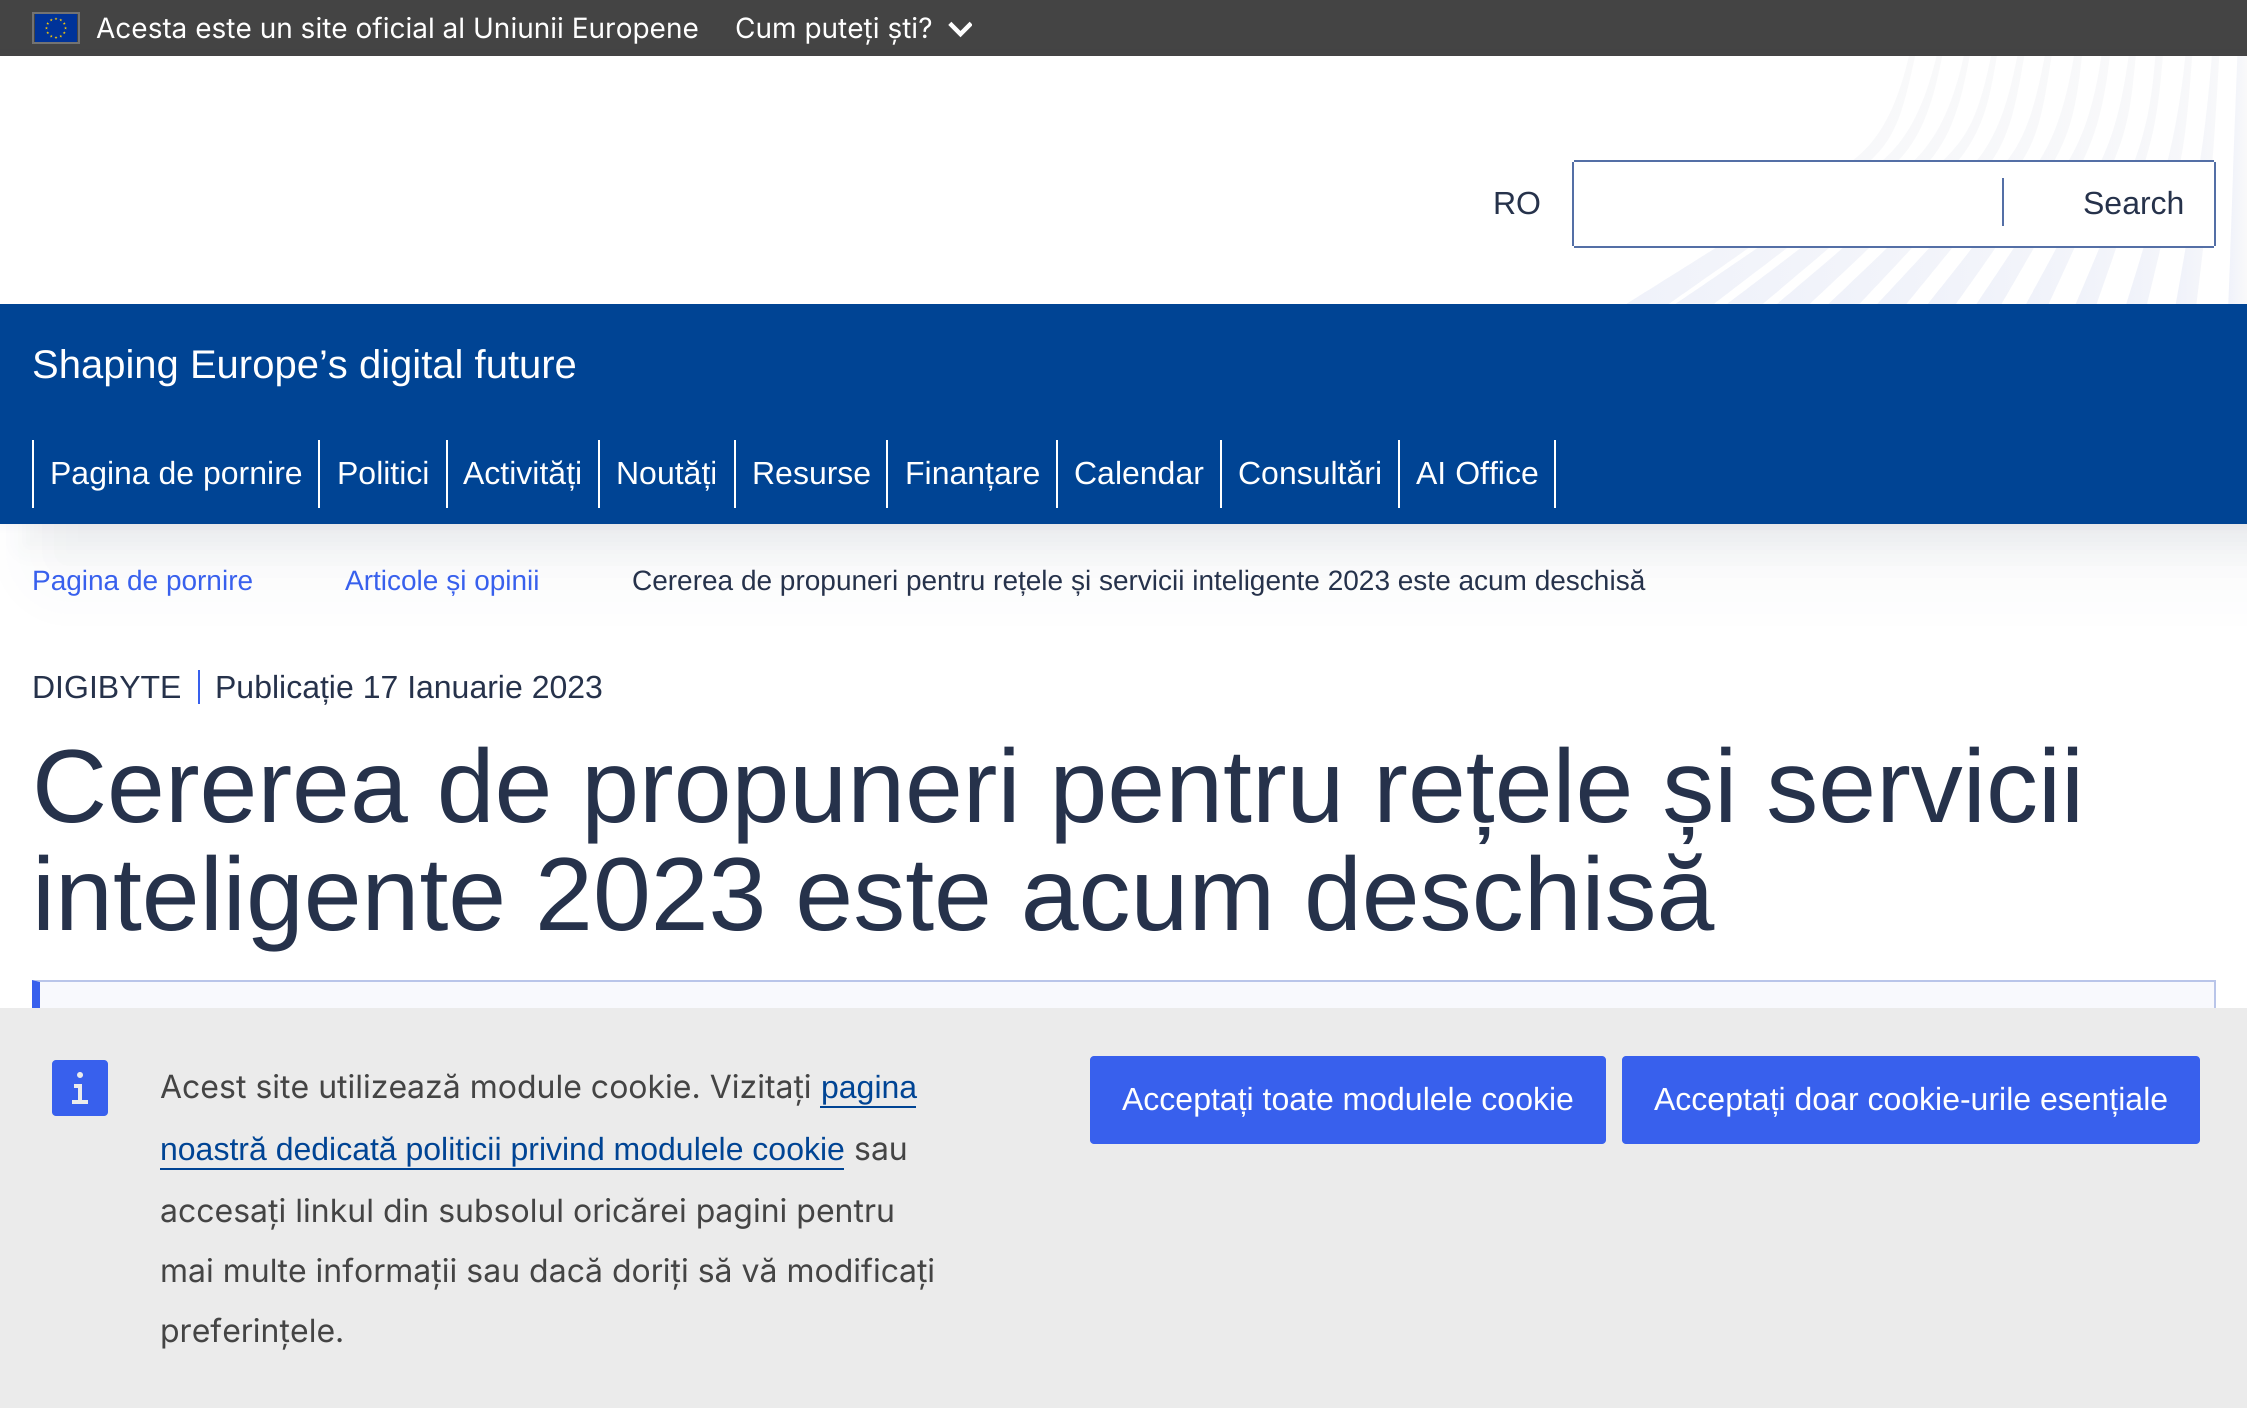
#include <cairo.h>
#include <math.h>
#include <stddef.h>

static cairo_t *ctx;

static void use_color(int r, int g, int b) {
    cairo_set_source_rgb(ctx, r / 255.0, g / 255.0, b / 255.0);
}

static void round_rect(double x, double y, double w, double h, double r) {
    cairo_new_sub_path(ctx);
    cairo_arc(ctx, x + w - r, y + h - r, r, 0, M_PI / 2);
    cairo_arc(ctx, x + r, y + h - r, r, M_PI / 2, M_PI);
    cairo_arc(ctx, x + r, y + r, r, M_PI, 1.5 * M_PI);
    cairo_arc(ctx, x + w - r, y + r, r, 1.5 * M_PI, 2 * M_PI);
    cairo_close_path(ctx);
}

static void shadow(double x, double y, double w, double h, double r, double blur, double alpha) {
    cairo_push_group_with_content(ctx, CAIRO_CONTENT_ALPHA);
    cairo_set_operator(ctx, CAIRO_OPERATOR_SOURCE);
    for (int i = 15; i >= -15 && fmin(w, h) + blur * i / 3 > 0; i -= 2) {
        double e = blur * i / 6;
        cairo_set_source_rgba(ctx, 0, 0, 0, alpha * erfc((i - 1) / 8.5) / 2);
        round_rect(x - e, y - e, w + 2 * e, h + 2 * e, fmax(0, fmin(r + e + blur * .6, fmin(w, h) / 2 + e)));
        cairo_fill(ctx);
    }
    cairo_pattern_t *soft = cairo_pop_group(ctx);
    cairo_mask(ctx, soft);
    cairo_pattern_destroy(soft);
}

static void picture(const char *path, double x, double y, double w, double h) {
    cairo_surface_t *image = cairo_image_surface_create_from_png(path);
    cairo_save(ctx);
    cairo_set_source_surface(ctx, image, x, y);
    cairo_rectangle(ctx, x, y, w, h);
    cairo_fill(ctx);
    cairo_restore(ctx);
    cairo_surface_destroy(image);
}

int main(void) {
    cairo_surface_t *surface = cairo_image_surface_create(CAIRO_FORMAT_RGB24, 2247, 1408);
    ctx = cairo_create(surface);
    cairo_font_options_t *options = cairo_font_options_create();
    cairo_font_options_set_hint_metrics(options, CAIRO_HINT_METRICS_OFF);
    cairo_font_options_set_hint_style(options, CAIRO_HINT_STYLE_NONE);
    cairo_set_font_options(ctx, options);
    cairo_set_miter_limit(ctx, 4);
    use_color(255, 255, 255);
    cairo_paint(ctx);
    use_color(68, 68, 68);
    cairo_rectangle(ctx, 0, 0, 2247, 56);
    cairo_fill(ctx);
    cairo_rectangle(ctx, 33, 13, 46, 30);
    use_color(115, 115, 115);
    cairo_stroke(ctx);
    picture("img1.png", 35, 14, 42, 28);
    cairo_select_font_face(ctx, "Inter", CAIRO_FONT_SLANT_NORMAL, CAIRO_FONT_WEIGHT_NORMAL);
    cairo_set_font_size(ctx, 28);
    use_color(255, 255, 255);
    cairo_move_to(ctx, 96, 38);
    cairo_show_text(ctx, "Acesta este un site oficial al Uniunii Europene");
    cairo_move_to(ctx, 735, 38);
    cairo_show_text(ctx, "Cum puteți ști?");
    picture("img2.png", 948, 21, 24, 17);
    use_color(56, 96, 237);
    cairo_rectangle(ctx, 198, 670, 2, 34);
    cairo_fill(ctx);
    use_color(38, 50, 75);
    shadow(48, 104, 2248, 468, 0, 36, 0.05);
    shadow(24, 80, 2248, 468, 0, 12, 0.05);
    shadow(0, 56, 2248, 468, 0, 6, 0.06);
    use_color(255, 255, 255);
    cairo_rectangle(ctx, 0, 56, 2247, 248);
    cairo_fill(ctx);
    picture("img3.png", 1627, 56, 620, 248);
    cairo_select_font_face(ctx, "Liberation Sans", CAIRO_FONT_SLANT_NORMAL, CAIRO_FONT_WEIGHT_NORMAL);
    cairo_set_font_size(ctx, 32);
    use_color(38, 50, 75);
    cairo_move_to(ctx, 1493, 214);
    cairo_show_text(ctx, "RO");
    use_color(255, 255, 255);
    cairo_rectangle(ctx, 1716, 160, 497, 88);
    cairo_fill(ctx);
    use_color(84, 111, 166);
    cairo_rectangle(ctx, 1574, 160, 640, 2);
    cairo_fill(ctx);
    cairo_rectangle(ctx, 1574, 246, 640, 2);
    cairo_fill(ctx);
    cairo_rectangle(ctx, 1572, 162, 2, 84);
    cairo_fill(ctx);
    cairo_rectangle(ctx, 2214, 162, 2, 84);
    cairo_fill(ctx);
    cairo_rectangle(ctx, 2002, 178, 2, 48);
    cairo_fill(ctx);
    use_color(38, 50, 75);
    cairo_move_to(ctx, 2083, 214);
    cairo_show_text(ctx, "Search");
    use_color(0, 68, 148);
    cairo_rectangle(ctx, 0, 304, 2247, 220);
    cairo_fill(ctx);
    cairo_set_font_size(ctx, 40);
    use_color(255, 255, 255);
    cairo_move_to(ctx, 32, 378);
    cairo_show_text(ctx, "Shaping Europe’s digital future");
    cairo_rectangle(ctx, 32, 440, 2, 68);
    cairo_fill(ctx);
    cairo_set_font_size(ctx, 32);
    cairo_move_to(ctx, 50, 484);
    cairo_show_text(ctx, "Pagina de pornire");
    cairo_rectangle(ctx, 318, 440, 2, 68);
    cairo_fill(ctx);
    cairo_move_to(ctx, 337, 484);
    cairo_show_text(ctx, "Politici");
    cairo_rectangle(ctx, 446, 440, 2, 68);
    cairo_fill(ctx);
    cairo_move_to(ctx, 463, 484);
    cairo_show_text(ctx, "Activități");
    cairo_rectangle(ctx, 598, 440, 2, 68);
    cairo_fill(ctx);
    cairo_move_to(ctx, 616, 484);
    cairo_show_text(ctx, "Noutăți");
    cairo_rectangle(ctx, 734, 440, 2, 68);
    cairo_fill(ctx);
    cairo_move_to(ctx, 752, 484);
    cairo_show_text(ctx, "Resurse");
    cairo_rectangle(ctx, 886, 440, 2, 68);
    cairo_fill(ctx);
    cairo_move_to(ctx, 905, 484);
    cairo_show_text(ctx, "Finanțare");
    cairo_rectangle(ctx, 1056, 440, 2, 68);
    cairo_fill(ctx);
    cairo_move_to(ctx, 1074, 484);
    cairo_show_text(ctx, "Calendar");
    cairo_rectangle(ctx, 1220, 440, 2, 68);
    cairo_fill(ctx);
    cairo_move_to(ctx, 1238, 484);
    cairo_show_text(ctx, "Consultări");
    cairo_rectangle(ctx, 1398, 440, 2, 68);
    cairo_fill(ctx);
    cairo_move_to(ctx, 1416, 484);
    cairo_show_text(ctx, "AI Office");
    cairo_rectangle(ctx, 1554, 440, 2, 68);
    cairo_fill(ctx);
    cairo_set_font_size(ctx, 28);
    use_color(56, 96, 237);
    cairo_move_to(ctx, 32, 590);
    cairo_show_text(ctx, "Pagina de pornire");
    cairo_move_to(ctx, 345, 590);
    cairo_show_text(ctx, "Articole și opinii");
    use_color(38, 50, 75);
    cairo_move_to(ctx, 632, 590);
    cairo_show_text(ctx, "Cererea de propuneri pentru rețele și servicii inteligente 2023 este acum deschisă");
    cairo_set_font_size(ctx, 32);
    cairo_move_to(ctx, 32, 698);
    cairo_show_text(ctx, "DIGIBYTE");
    cairo_move_to(ctx, 215, 698);
    cairo_show_text(ctx, "Publicație 17 Ianuarie 2023");
    cairo_set_font_size(ctx, 104);
    cairo_move_to(ctx, 32, 822);
    cairo_show_text(ctx, "Cererea de propuneri pentru rețele și servicii");
    cairo_move_to(ctx, 32, 930);
    cairo_show_text(ctx, "inteligente 2023 este acum deschisă");
    use_color(248, 249, 253);
    cairo_rectangle(ctx, 40, 982, 2174, 26);
    cairo_fill(ctx);
    use_color(185, 197, 233);
    cairo_new_path(ctx);
    cairo_move_to(ctx, 32, 980);
    cairo_line_to(ctx, 2216, 980);
    cairo_line_to(ctx, 2214, 982);
    cairo_line_to(ctx, 40, 982);
    cairo_close_path(ctx);
    cairo_fill(ctx);
    cairo_rectangle(ctx, 2214, 980, 2, 28);
    cairo_fill(ctx);
    use_color(56, 96, 237);
    cairo_new_path(ctx);
    cairo_move_to(ctx, 32, 1264);
    cairo_line_to(ctx, 32, 980);
    cairo_line_to(ctx, 40, 982);
    cairo_line_to(ctx, 40, 1262);
    cairo_close_path(ctx);
    cairo_fill(ctx);
    use_color(235, 235, 235);
    cairo_rectangle(ctx, 0, 1008, 2247, 400);
    cairo_fill(ctx);
    picture("img4.png", 52, 1060, 56, 56);
    cairo_select_font_face(ctx, "Inter", CAIRO_FONT_SLANT_NORMAL, CAIRO_FONT_WEIGHT_NORMAL);
    cairo_set_font_size(ctx, 32);
    use_color(68, 68, 68);
    cairo_move_to(ctx, 160, 1098);
    cairo_show_text(ctx, "Acest site utilizează module cookie. Vizitați");
    cairo_select_font_face(ctx, "Liberation Sans", CAIRO_FONT_SLANT_NORMAL, CAIRO_FONT_WEIGHT_NORMAL);
    use_color(0, 68, 148);
    cairo_move_to(ctx, 821, 1098);
    cairo_show_text(ctx, "pagina");
    cairo_rectangle(ctx, 820, 1106, 96, 2);
    cairo_fill(ctx);
    cairo_move_to(ctx, 160, 1160);
    cairo_show_text(ctx, "noastră dedicată politicii privind modulele cookie");
    cairo_rectangle(ctx, 160, 1168, 684, 2);
    cairo_fill(ctx);
    cairo_select_font_face(ctx, "Inter", CAIRO_FONT_SLANT_NORMAL, CAIRO_FONT_WEIGHT_NORMAL);
    use_color(68, 68, 68);
    cairo_move_to(ctx, 854, 1160);
    cairo_show_text(ctx, "sau");
    cairo_move_to(ctx, 160, 1222);
    cairo_show_text(ctx, "accesați linkul din subsolul oricărei pagini pentru");
    cairo_move_to(ctx, 160, 1282);
    cairo_show_text(ctx, "mai multe informații sau dacă doriți să vă modificați");
    cairo_move_to(ctx, 160, 1342);
    cairo_show_text(ctx, "preferințele.");
    use_color(56, 96, 237);
    round_rect(1090, 1056, 516, 88, 4);
    cairo_fill(ctx);
    cairo_select_font_face(ctx, "Liberation Sans", CAIRO_FONT_SLANT_NORMAL, CAIRO_FONT_WEIGHT_NORMAL);
    use_color(255, 255, 255);
    cairo_move_to(ctx, 1122, 1110);
    cairo_show_text(ctx, "Acceptați toate modulele cookie");
    use_color(56, 96, 237);
    round_rect(1622, 1056, 578, 88, 4);
    cairo_fill(ctx);
    use_color(255, 255, 255);
    cairo_move_to(ctx, 1654, 1110);
    cairo_show_text(ctx, "Acceptați doar cookie-urile esențiale");
    cairo_surface_write_to_png(surface, "result.png");
    cairo_font_options_destroy(options);
    cairo_destroy(ctx);
    cairo_surface_destroy(surface);
    return 0;
}
